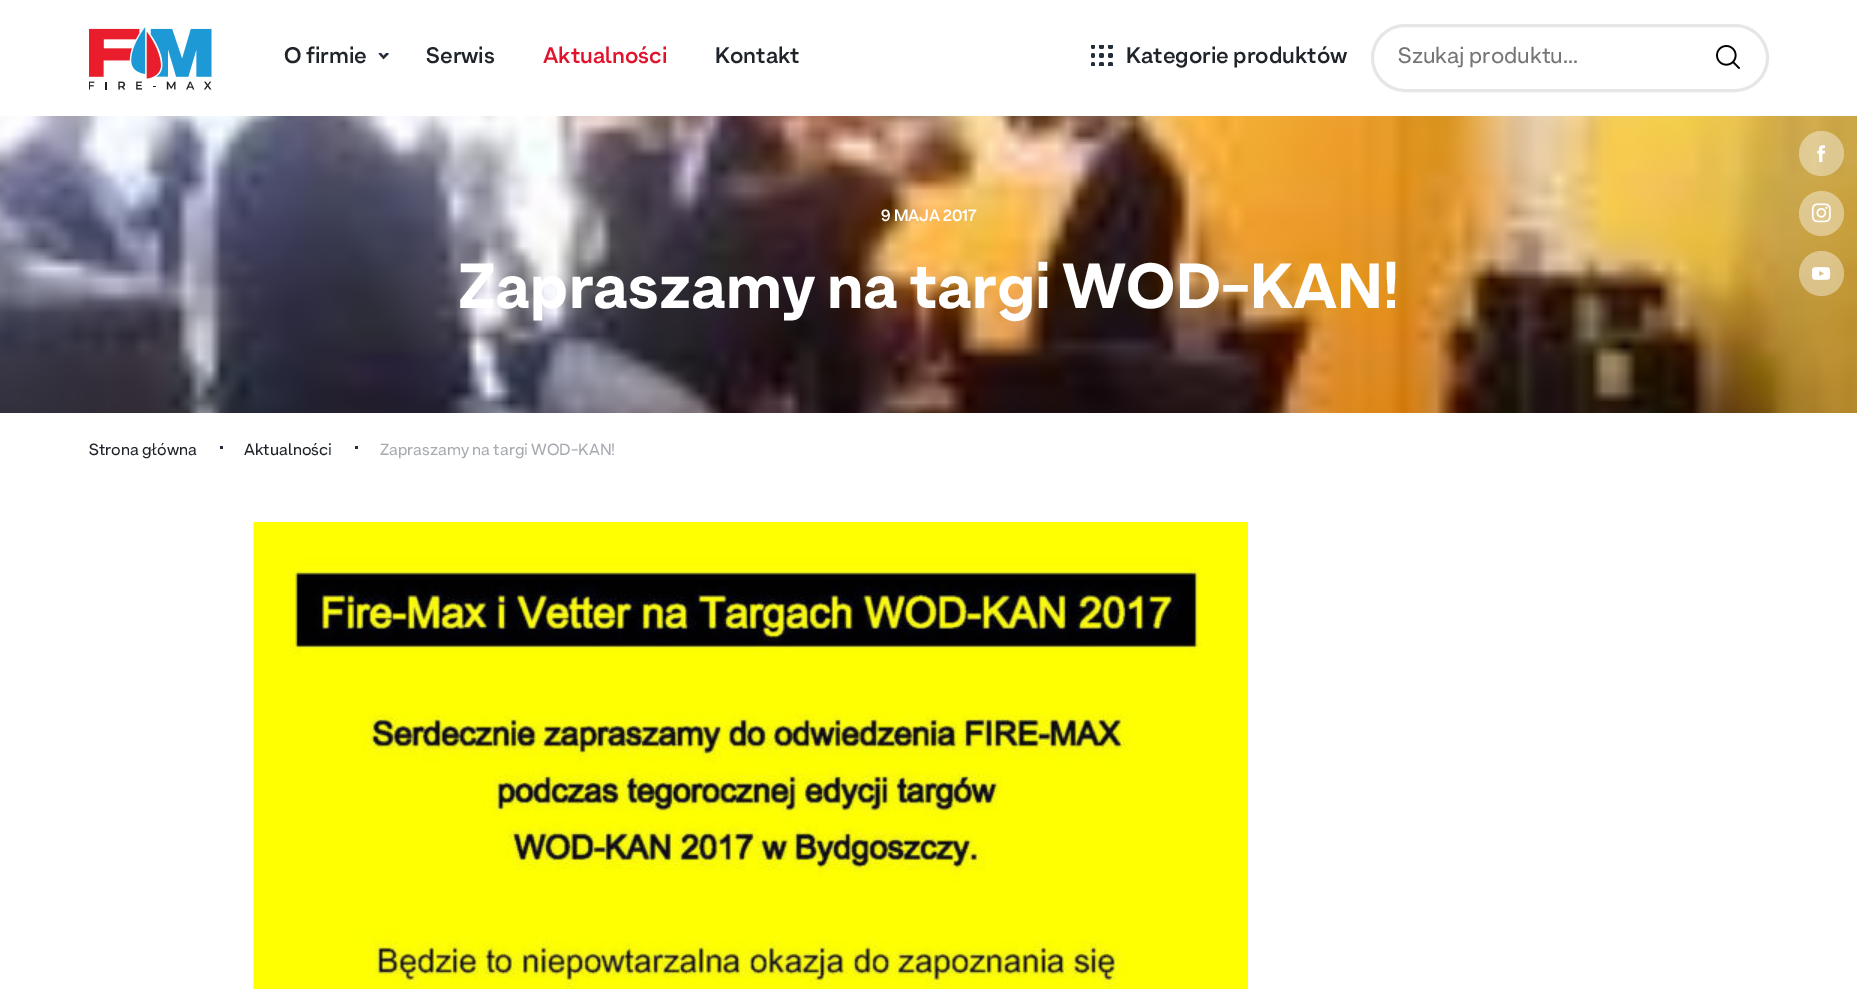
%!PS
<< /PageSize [1857 989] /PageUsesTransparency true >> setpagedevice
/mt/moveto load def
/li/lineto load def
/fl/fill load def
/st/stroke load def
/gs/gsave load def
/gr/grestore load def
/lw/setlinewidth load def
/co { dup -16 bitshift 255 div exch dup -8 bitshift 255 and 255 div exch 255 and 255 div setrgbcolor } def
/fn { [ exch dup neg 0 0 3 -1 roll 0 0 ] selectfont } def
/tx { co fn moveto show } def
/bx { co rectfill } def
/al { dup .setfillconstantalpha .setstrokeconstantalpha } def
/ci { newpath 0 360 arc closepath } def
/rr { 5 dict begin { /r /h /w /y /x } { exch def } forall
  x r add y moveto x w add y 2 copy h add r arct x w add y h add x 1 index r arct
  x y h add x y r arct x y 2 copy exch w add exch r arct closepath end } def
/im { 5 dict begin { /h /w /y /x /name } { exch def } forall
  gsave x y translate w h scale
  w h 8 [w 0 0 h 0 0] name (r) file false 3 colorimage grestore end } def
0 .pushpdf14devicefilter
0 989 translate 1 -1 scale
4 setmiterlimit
0 0 1857 989 16#FFFFFF bx
(media/1.raw) 89 27 123 63 im
gs
378 53 12 7 rectclip
16#242E3B co
2.2 lw
379.5 53 mt 383.5 57.5 li 388 53 li st
gr
(media/2.raw) 1091 45 22 21 im
16#E6E6E6 co
3 lw
1372.5 25.5 395 65 32.5 rr st
(media/3.raw) 1716 45 24 24 im
(media/4.raw) 0 116 1857 297 im
0.4 al
16#FFFFFF co
1821.5 153.5 22.5 ci fl
1 al
(media/5.raw) 1817 145 9 17 im
0.4 al
1821.5 213.5 22.5 ci fl
1 al
(media/6.raw) 1811 203 20 20 im
0.4 al
1821.5 273.5 22.5 ci fl
1 al
(media/7.raw) 1811 267 20 13 im
(media/8.raw) 253 522 995 467 im
(O firmie) 284 63 /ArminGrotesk-SemiBold 22.5 16#1F242A tx
(Serwis) 426 63 /ArminGrotesk-SemiBold 22.5 16#1F242A tx
(Aktualności) 543 63 /ArminGrotesk-SemiBold 22.5 16#E0122C tx
(Kontakt) 715 63 /ArminGrotesk-SemiBold 22.5 16#1F242A tx
(Kategorie produktów) 1126 63 /ArminGrotesk-SemiBold 22.5 16#1F242A tx
(Szukaj produktu...) 1398 63 /ArminGrotesk-Regular 22.5 16#757575 tx
(9 MAJA 2017) 881 221 /ArminGrotesk-SemiBold 16.25 16#FFFFFF tx
(Zapraszamy na targi WOD-KAN!) 458 308 /ArminGrotesk-ExtraBold 63 16#FFFFFF tx
(Strona główna) 89 455 /ArminGrotesk-Regular 16.25 16#1F242A tx
(.) 219 449 /ArminGrotesk-SemiBold 22.5 16#242E3B tx
(Aktualności) 244 455 /ArminGrotesk-Regular 16.25 16#1F242A tx
(.) 354 449 /ArminGrotesk-SemiBold 22.5 16#242E3B tx
(Zapraszamy na targi WOD-KAN!) 380 455 /ArminGrotesk-Regular 16.25 16#A7ABB1 tx
.poppdf14devicefilter showpage
